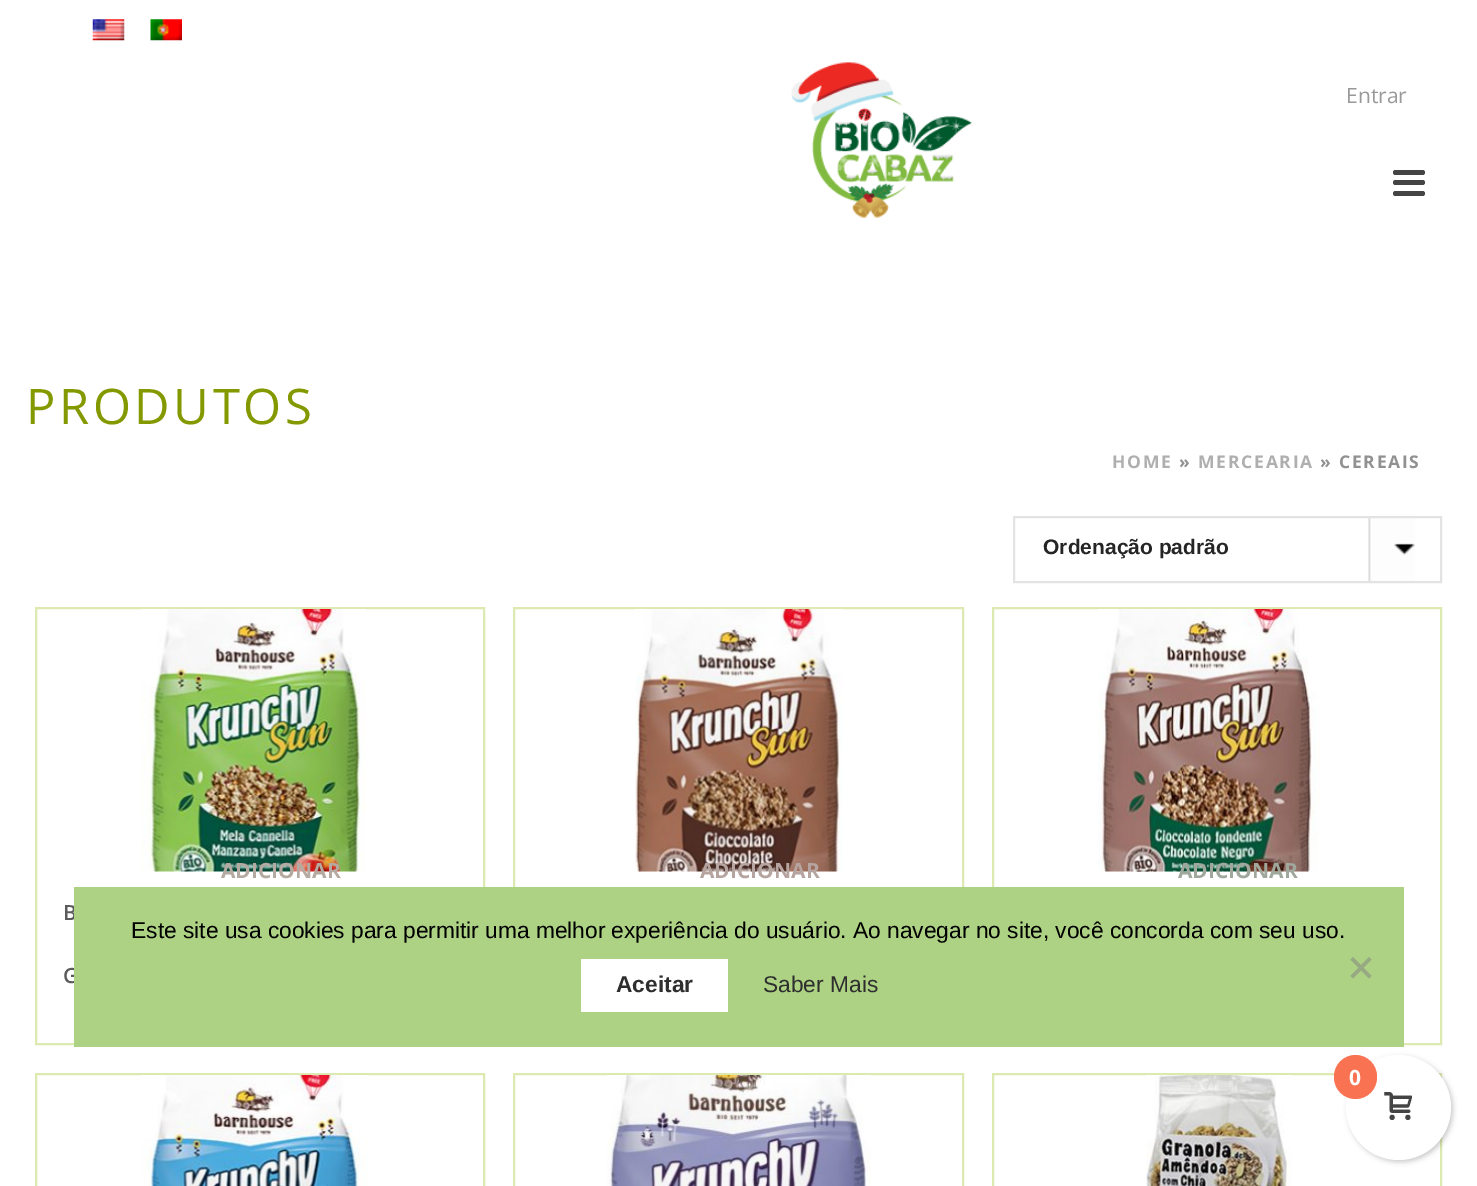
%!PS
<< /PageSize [1477 1186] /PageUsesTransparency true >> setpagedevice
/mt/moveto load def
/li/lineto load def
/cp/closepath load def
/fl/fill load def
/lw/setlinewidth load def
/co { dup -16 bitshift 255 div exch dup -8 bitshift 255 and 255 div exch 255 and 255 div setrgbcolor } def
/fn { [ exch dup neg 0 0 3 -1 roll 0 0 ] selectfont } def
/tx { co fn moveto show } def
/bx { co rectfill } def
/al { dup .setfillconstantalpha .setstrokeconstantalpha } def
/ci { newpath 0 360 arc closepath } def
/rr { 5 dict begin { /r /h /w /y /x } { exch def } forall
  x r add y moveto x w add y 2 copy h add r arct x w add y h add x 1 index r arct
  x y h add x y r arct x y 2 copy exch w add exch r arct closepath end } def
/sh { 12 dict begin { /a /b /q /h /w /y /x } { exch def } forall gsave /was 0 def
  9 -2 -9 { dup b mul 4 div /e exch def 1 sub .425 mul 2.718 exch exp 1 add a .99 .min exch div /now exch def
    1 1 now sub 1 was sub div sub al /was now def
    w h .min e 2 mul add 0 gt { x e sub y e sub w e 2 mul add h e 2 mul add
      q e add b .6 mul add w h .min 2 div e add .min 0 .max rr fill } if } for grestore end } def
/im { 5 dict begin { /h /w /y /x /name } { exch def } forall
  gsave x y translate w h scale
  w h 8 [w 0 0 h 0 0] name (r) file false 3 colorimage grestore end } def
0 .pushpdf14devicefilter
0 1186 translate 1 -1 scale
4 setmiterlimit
0 0 1477 1186 16#FFFFFF bx
(media/1.raw) 791 62 181 156 im
16#444444 co
1393 170 32 5 2.5 rr fl
1393 180 32 5 2.5 rr fl
1393 191 32 5 2.5 rr fl
(media/2.raw) 92 19 33 22 im
(media/3.raw) 150 19 32 22 im
(media/4.raw) 1368 518 47 63 im
16#E3E3E3 co
2 lw
1014 517 427 65 rectstroke
16#DCE9B0 co
36 608 448 436 rectstroke
(media/5.raw) 141 609 225 263 im
514 608 449 436 rectstroke
(media/6.raw) 635 609 208 263 im
993 608 448 436 rectstroke
(media/7.raw) 1098 609 222 263 im
36 1074 448 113 rectstroke
(media/8.raw) 141 1075 227 111 im
514 1074 449 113 rectstroke
(media/9.raw) 607 1075 264 111 im
993 1074 448 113 rectstroke
(media/10.raw) 1146 1075 146 111 im
16#000000 co
1348 1057 105 105 52.5 2.5 .2 sh
16#FFFFFF co
1398.5 1107.5 52.5 ci fl
16#F97352 co
1334 1055 43 44 21.5 rr fl
(media/11.raw) 1384 1092 28 28 im
(Entrar) 1346 103 /OpenSans-Regular 21 16#999999 tx
/OpenSans-Regular 49 fn
16#849900 co
26 424 mt 3.5 0 (PRODUTOS) ashow
/OpenSans-Bold 17.5 fn
16#AFAFAF co
1112 468 mt 1.75 0 (HOME) ashow
16#919191 co
1179 468 mt 1.75 0 (») ashow
16#AFAFAF co
1198 468 mt 1.75 0 (MERCEARIA) ashow
16#919191 co
1320 468 mt 1.75 0 (» CEREAIS) ashow
(Ordenação padrão) 1043 554 /LiberationSans-Bold 21 16#252525 tx
(ADICIONAR) 221 878 /OpenSans-Bold 21 16#B5AAA1 tx
/OpenSans-SemiBold 21 fn
16#5B5B5B co
63 920 mt 1.75 0 (B) ashow
63 983 mt 1.75 0 (G) ashow
(ADICIONAR) 700 878 /OpenSans-Bold 21 16#B5A49F tx
(ADICIONAR) 1178 878 /OpenSans-Bold 21 16#A0A89E tx
74 887 1330 160 16#AED284 bx
(Este site usa cookies para permitir uma melhor experiência do usuário. Ao navegar no site, você concorda com seu uso.) 131 938 /LiberationSans-Regular 22.75 16#000000 tx
16#97A982 co
1369 957 mt 1371.5 959.5 li 1353 978.5 li 1350.5 976 li cp fl
1350.5 959.5 mt 1353 957 li 1371.5 976 li 1369 978.5 li cp fl
581 959 147 53 16#FFFFFF bx
(Aceitar) 616 992 /LiberationSans-Bold 22.75 16#2E2E2E tx
(Saber Mais) 763 992 /LiberationSans-Regular 22.75 16#2E2E2E tx
(0) 1349 1085 /OpenSans-Bold 21 16#FFFFFF tx
.poppdf14devicefilter showpage
